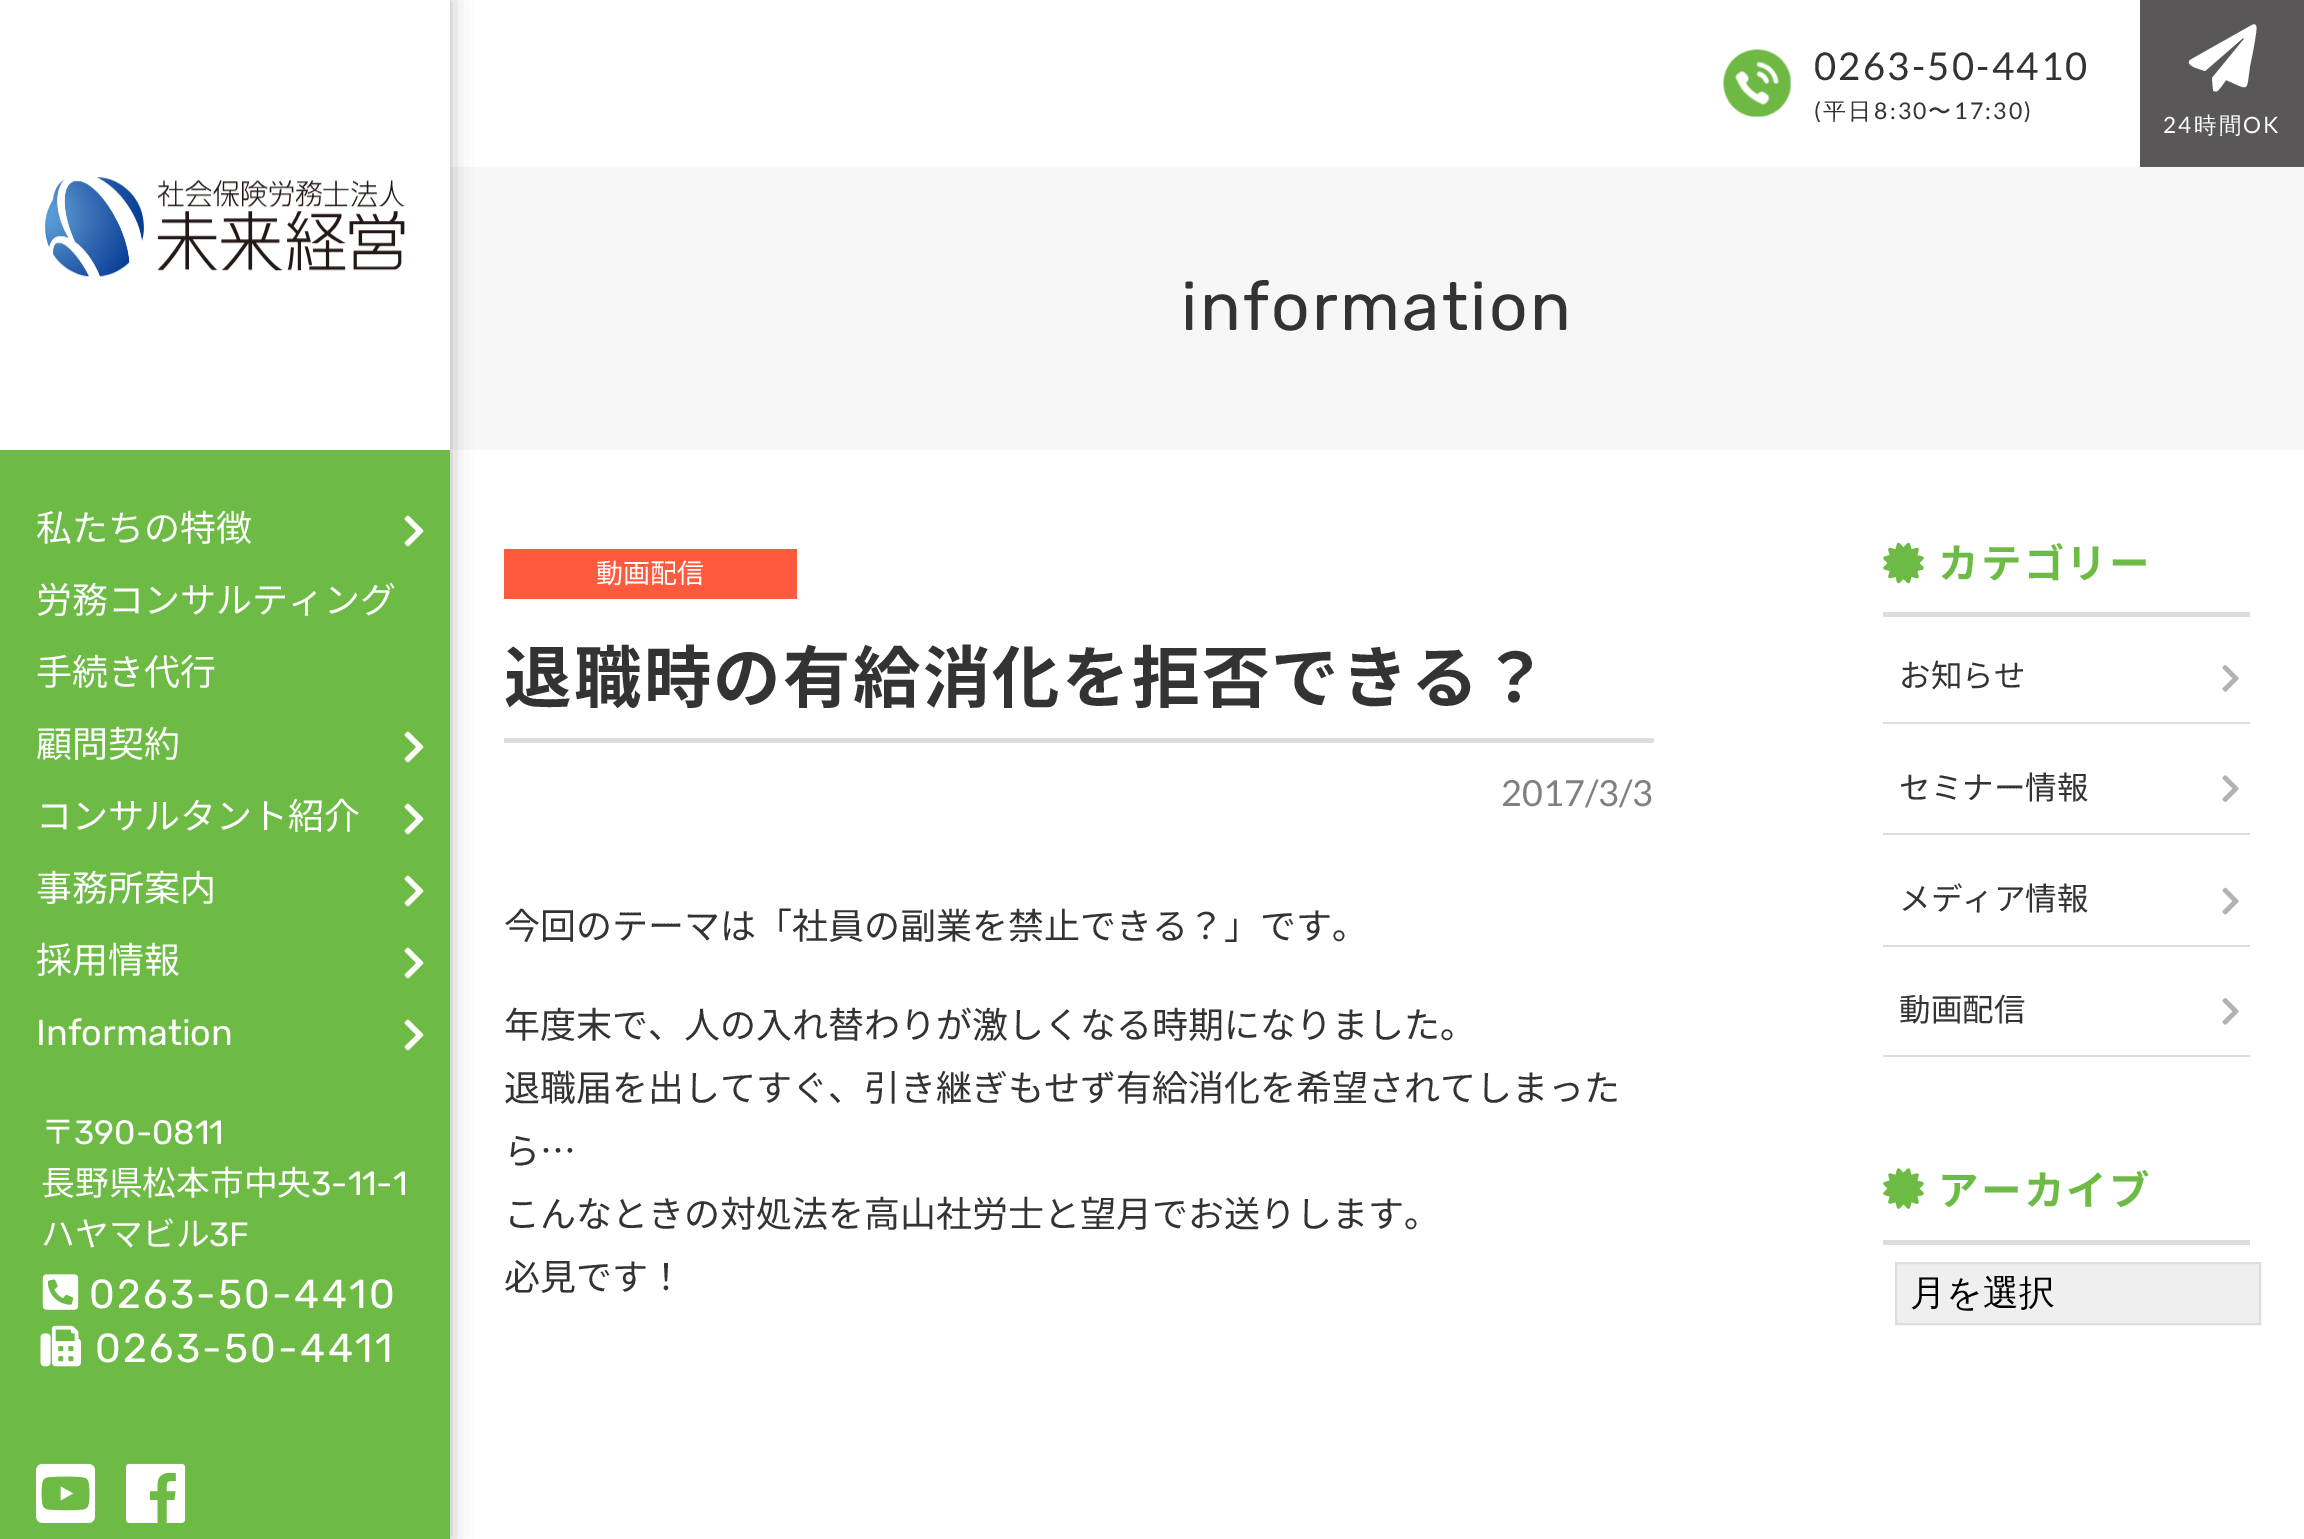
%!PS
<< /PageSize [2304 1539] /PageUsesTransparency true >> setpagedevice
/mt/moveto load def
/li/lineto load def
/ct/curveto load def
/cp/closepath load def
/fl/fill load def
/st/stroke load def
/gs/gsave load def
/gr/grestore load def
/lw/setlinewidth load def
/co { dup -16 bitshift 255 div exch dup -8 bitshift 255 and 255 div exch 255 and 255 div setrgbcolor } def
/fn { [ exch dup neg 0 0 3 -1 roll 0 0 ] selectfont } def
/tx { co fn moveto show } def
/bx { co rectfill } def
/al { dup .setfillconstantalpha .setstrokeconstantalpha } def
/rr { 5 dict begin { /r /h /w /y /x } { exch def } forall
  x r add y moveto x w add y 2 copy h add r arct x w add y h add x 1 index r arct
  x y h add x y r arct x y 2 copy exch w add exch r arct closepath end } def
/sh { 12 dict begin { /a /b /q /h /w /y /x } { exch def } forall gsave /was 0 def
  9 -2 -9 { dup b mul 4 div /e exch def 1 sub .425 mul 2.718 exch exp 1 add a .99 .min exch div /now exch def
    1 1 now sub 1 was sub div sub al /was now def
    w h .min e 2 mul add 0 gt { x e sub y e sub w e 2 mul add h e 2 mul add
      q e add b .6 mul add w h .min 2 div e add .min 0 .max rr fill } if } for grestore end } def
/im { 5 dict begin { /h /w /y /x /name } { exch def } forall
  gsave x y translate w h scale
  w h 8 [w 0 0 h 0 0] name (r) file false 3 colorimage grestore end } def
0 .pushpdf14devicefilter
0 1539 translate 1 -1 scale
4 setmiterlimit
0 0 2304 1539 16#FFFFFF bx
(media/1.raw) 1723 49 69 69 im
2140 0 164 167 16#595757 bx
16#FFFFFF co
2252 25 mt 2190 60 li 2186 64 2194 67 2196 68 ct 2205 71 li 2243 38 li 2244 39 li 2212 78 li 2213 89 li 2213 90 2213 91 2214 91 ct 2217 93 2219 89 2221 87 ct 2226 80 li 2250 90 2246 93 2250 66 ct 2251 61 2258 28 2256 26 ct 2255 24 2254 24 2252 25 ct cp fl
450 167 1854 283 16#F7F7F7 bx
16#000000 co
0 0 450 1539 0 11 .3 sh
0 450 450 1089 16#6DBA44 bx
0 0 450 450 16#FFFFFF bx
(media/2.raw) 45 177 360 100 im
(media/3.raw) 404 515 20 32 im
(media/3.raw) 404 731 20 32 im
(media/3.raw) 404 803 20 32 im
(media/3.raw) 404 875 20 32 im
(media/3.raw) 404 947 20 32 im
(media/3.raw) 404 1019 20 32 im
(media/4.raw) 42 1274 37 36 im
(media/5.raw) 40 1325 41 42 im
(media/6.raw) 36 1463 60 60 im
(media/7.raw) 126 1463 60 60 im
504 549 293 50 16#FF593E bx
504 738 1150 5 16#DEDEDE bx
1883 612 367 5 16#DDDDDD bx
(media/8.raw) 1883 542 41 42 im
1883 722 367 2 16#DDDDDD bx
(media/9.raw) 2222 665 17 27 im
1883 833 367 2 16#DDDDDD bx
(media/10.raw) 2222 775 17 27 im
1883 945 367 2 16#DDDDDD bx
(media/11.raw) 2222 887 17 28 im
1883 1055 367 2 16#DDDDDD bx
(media/9.raw) 2222 998 17 27 im
1883 1240 367 5 16#DDDDDD bx
(media/12.raw) 1883 1168 41 41 im
16#EFEFEF co
1896 1263 mt 2260 1263 li 2260 1324 li 1896 1324 li cp gs fl gr
16#DDDDDD co
2 lw
st
/Lato-Regular 38.25 fn
16#333333 co
1814 80 mt 2.25 0 (0263-50-4410) ashow
/Lato-Regular 23 fn
1814 119 mt 2.25 0 (\() ashow
/WenQuanYiZenHei-Medium 23 fn
1823 119 mt 2.25 0 (平日) ashow
/Lato-Regular 23 fn
1874 119 mt 2.25 0 (8:30) ashow
/WenQuanYiZenHei-Medium 23 fn
1928 119 mt 2.25 0 (〜) ashow
/Lato-Regular 23 fn
1954 119 mt 2.25 0 (17:30\)) ashow
/Lato-Regular 22.5 fn
16#FFFFFF co
2163 133 mt 2.25 0 (24) ashow
/WenQuanYiZenHei-Medium 22.5 fn
2194 133 mt 2.25 0 (時間) ashow
/Lato-Regular 22.5 fn
2243 133 mt 2.25 0 (OK) ashow
(私たちの特徴) 36 541 /NotoSansJP-Regular 36 16#FFFFFF tx
(労務コンサルティング) 36 613 /NotoSansJP-Regular 36 16#FFFFFF tx
(手続き代行) 36 685 /NotoSansJP-Regular 36 16#FFFFFF tx
(顧問契約) 36 757 /NotoSansJP-Regular 36 16#FFFFFF tx
(コンサルタント紹介) 36 829 /NotoSansJP-Regular 36 16#FFFFFF tx
(事務所案内) 36 901 /NotoSansJP-Regular 36 16#FFFFFF tx
(採用情報) 36 973 /NotoSansJP-Regular 36 16#FFFFFF tx
(Information) 36 1045 /Rubik-Light 36 16#FFFFFF tx
(〒) 41 1144 /NotoSansJP-Regular 33.75 16#FFFFFF tx
(390-0811) 74 1144 /Rubik-Light 33.75 16#FFFFFF tx
(長野県松本市中央) 41 1195 /NotoSansJP-Regular 33.75 16#FFFFFF tx
(3-11-1) 311 1195 /Rubik-Light 33.75 16#FFFFFF tx
(ハヤマビル) 41 1246 /NotoSansJP-Regular 33.75 16#FFFFFF tx
(3F) 209 1246 /Rubik-Light 33.75 16#FFFFFF tx
/Rubik-Light 40.5 fn
89 1308 mt 2.25 0 (0263-50-4410) ashow
95 1362 mt 2.25 0 (0263-50-4411) ashow
/Rubik-Light 67.5 fn
16#333333 co
1181 330 mt 2.25 0 (information) ashow
(動画配信) 596 583 /NotoSansJP-Regular 27 16#FFFFFF tx
/NotoSansJP-Bold 67.5 fn
16#333333 co
504 702 mt 2.25 0 (退職時の有給消化を拒否できる？) ashow
(2017/3/3) 1501 806 /Lato-Regular 36 16#808080 tx
(今回のテーマは「社員の副業を禁止できる？」です。) 504 939 /NotoSansJP-Regular 36 16#333333 tx
(年度末で、人の入れ替わりが激しくなる時期になりました。) 504 1038 /NotoSansJP-Regular 36 16#333333 tx
(退職届を出してすぐ、引き継ぎもせず有給消化を希望されてしまった) 504 1101 /NotoSansJP-Regular 36 16#333333 tx
(ら…) 504 1164 /NotoSansJP-Regular 36 16#333333 tx
(こんなときの対処法を高山社労士と望月でお送りします。) 504 1227 /NotoSansJP-Regular 36 16#333333 tx
(必見です！) 504 1290 /NotoSansJP-Regular 36 16#333333 tx
/NotoSansJP-Bold 40.5 fn
16#6DBA44 co
1938 578 mt 2.25 0 (カテゴリー) ashow
(お知らせ) 1899 687 /NotoSansJP-Regular 31.5 16#333333 tx
(セミナー情報) 1899 799 /NotoSansJP-Regular 31.5 16#333333 tx
(メディア情報) 1899 910 /NotoSansJP-Regular 31.5 16#333333 tx
(動画配信) 1899 1021 /NotoSansJP-Regular 31.5 16#333333 tx
/NotoSansJP-Bold 40.5 fn
16#6DBA44 co
1938 1205 mt 2.25 0 (アーカイブ) ashow
(月を選択) 1910 1305 /WenQuanYiZenHei-Medium 36 16#000000 tx
.poppdf14devicefilter showpage
